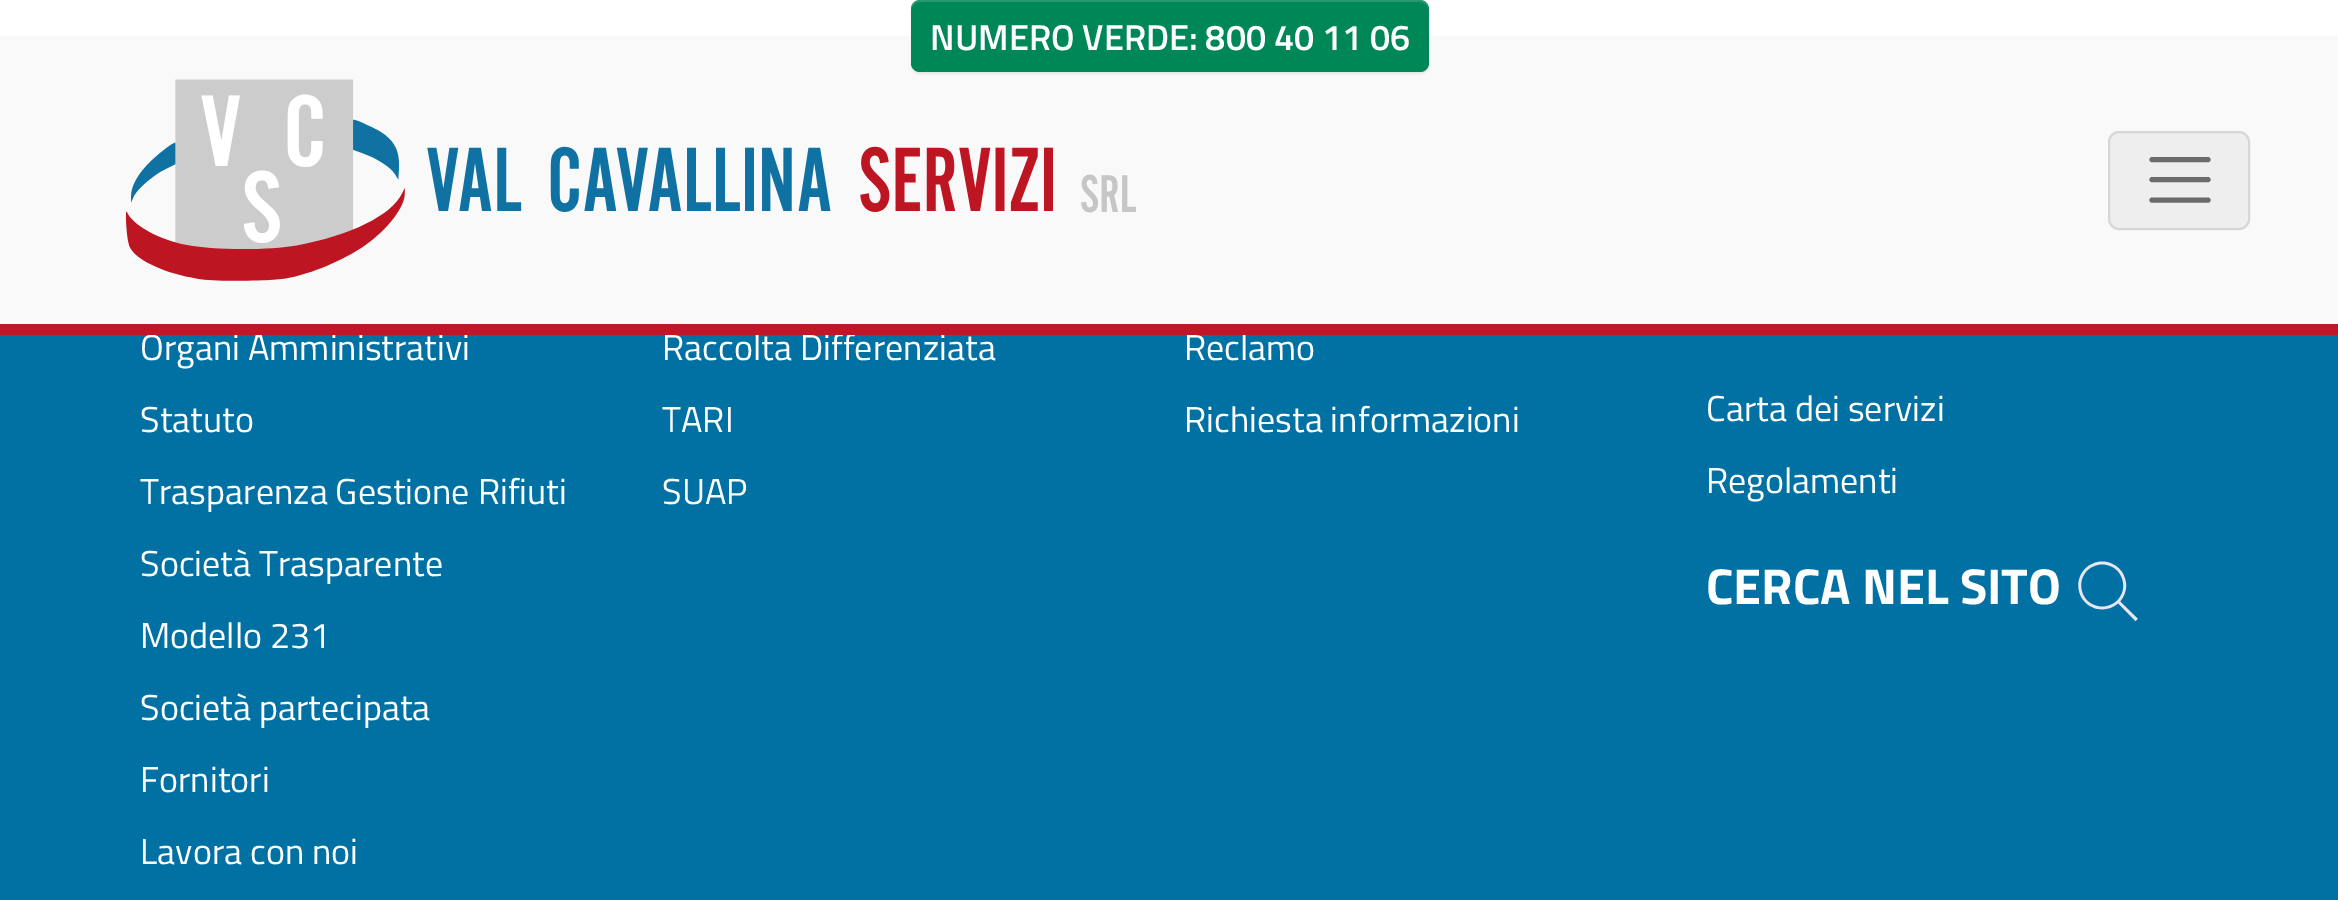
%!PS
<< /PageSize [2338 900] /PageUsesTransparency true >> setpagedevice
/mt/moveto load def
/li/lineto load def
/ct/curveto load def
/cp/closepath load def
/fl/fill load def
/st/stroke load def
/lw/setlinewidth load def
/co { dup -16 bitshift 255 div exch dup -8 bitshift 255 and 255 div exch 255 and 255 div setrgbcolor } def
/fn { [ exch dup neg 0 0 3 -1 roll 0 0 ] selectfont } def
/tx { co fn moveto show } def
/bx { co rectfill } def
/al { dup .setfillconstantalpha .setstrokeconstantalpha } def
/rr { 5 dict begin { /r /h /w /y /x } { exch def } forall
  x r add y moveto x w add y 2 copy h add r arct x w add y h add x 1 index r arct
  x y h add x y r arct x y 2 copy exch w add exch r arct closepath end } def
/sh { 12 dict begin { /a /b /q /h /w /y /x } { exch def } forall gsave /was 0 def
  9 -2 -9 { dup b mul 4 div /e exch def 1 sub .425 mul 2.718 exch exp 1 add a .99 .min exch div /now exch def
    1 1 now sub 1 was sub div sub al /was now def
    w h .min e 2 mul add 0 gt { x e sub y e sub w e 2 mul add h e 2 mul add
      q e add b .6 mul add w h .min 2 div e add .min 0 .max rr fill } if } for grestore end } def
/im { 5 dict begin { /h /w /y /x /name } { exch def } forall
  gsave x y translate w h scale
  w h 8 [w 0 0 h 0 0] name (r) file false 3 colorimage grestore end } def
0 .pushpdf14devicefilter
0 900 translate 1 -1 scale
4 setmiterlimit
0 0 2338 900 16#0171A3 bx
0 0 2338 36 16#FFFFFF bx
0 36 2338 288 16#F9F9F9 bx
16#000000 co
911 2 518 72 9 1 .07 sh
16#008758 co
911 0 518 72 9 rr fl
0.15 al
16#FFFFFF co
920 2 mt 1420 2 li 1425 2 1429 6 1429 11 ct 1429 9 li 1429 4 1425 0 1420 0 ct 920 0 li 915 0 911 4 911 9 ct 911 11 li 911 6 915 2 920 2 ct cp fl
1 al
(media/1.raw) 125 79 1011 202 im
16#EEEEEE co
2108 131 142 99 11 rr fl
0.1 al
16#000000 co
2 lw
2109 132 140 97 10 rr st
1 al
16#6B6B6B co
5.1 lw
1 setlinecap
2152 159.5 mt 2208 159.5 li 2152 179.5 mt 2208 179.5 li 2152 200 mt 2208 200 li st
(media/2.raw) 2078 561 60 61 im
(NUMERO VERDE: 800 40 11 06) 930 50 /TitilliumWeb-SemiBold 36 16#FFFFFF tx
(Organi Amministrativi) 140 360 /TitilliumWeb-Regular 36 16#FFFFFF tx
(Statuto) 140 432 /TitilliumWeb-Regular 36 16#FFFFFF tx
(Trasparenza Gestione Rifiuti) 140 504 /TitilliumWeb-Regular 36 16#FFFFFF tx
(Società Trasparente) 140 576 /TitilliumWeb-Regular 36 16#FFFFFF tx
(Modello 231) 140 648 /TitilliumWeb-Regular 36 16#FFFFFF tx
(Società partecipata) 140 720 /TitilliumWeb-Regular 36 16#FFFFFF tx
(Fornitori) 140 792 /TitilliumWeb-Regular 36 16#FFFFFF tx
(Lavora con noi) 140 864 /TitilliumWeb-Regular 36 16#FFFFFF tx
(Raccolta Differenziata) 662 360 /TitilliumWeb-Regular 36 16#FFFFFF tx
(TARI) 662 432 /TitilliumWeb-Regular 36 16#FFFFFF tx
(SUAP) 662 504 /TitilliumWeb-Regular 36 16#FFFFFF tx
(Reclamo) 1184 360 /TitilliumWeb-Regular 36 16#FFFFFF tx
0 324 2338 11 16#BB1928 bx
(Richiesta informazioni) 1184 432 /TitilliumWeb-Regular 36 16#FFFFFF tx
(Carta dei servizi) 1706 421 /TitilliumWeb-Regular 36 16#FFFFFF tx
(Regolamenti) 1706 493 /TitilliumWeb-Regular 36 16#FFFFFF tx
(CERCA NEL SITO) 1706 604 /TitilliumWeb-Bold 50.5 16#FFFFFF tx
.poppdf14devicefilter showpage
